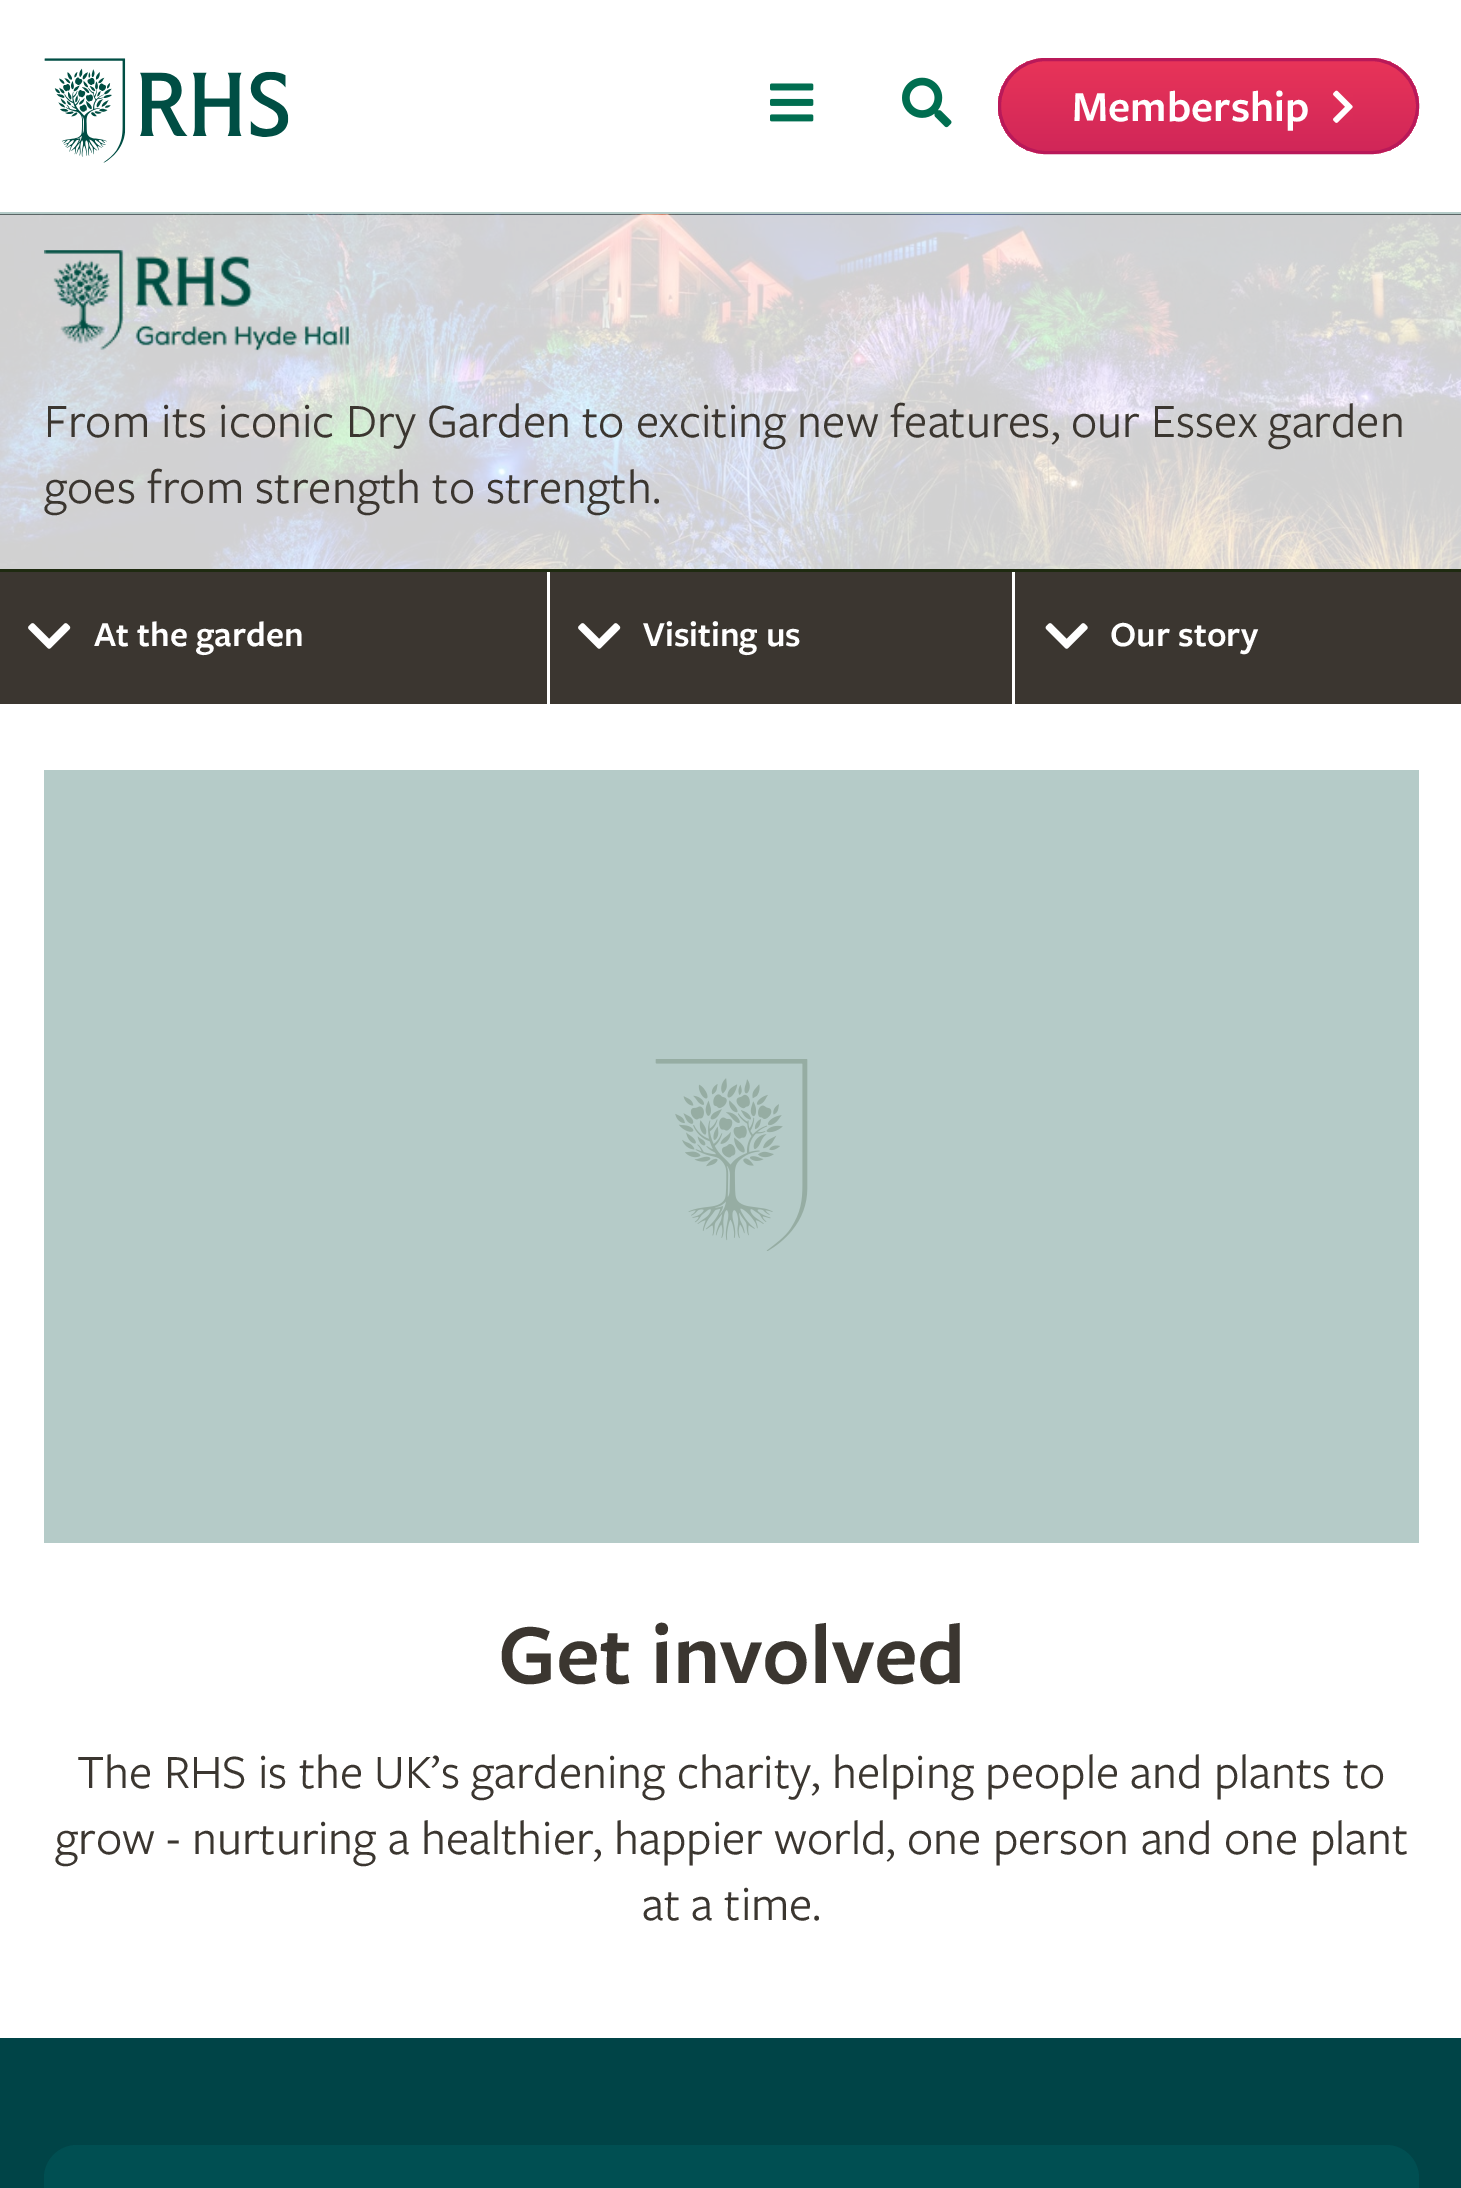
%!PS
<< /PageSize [1461 2188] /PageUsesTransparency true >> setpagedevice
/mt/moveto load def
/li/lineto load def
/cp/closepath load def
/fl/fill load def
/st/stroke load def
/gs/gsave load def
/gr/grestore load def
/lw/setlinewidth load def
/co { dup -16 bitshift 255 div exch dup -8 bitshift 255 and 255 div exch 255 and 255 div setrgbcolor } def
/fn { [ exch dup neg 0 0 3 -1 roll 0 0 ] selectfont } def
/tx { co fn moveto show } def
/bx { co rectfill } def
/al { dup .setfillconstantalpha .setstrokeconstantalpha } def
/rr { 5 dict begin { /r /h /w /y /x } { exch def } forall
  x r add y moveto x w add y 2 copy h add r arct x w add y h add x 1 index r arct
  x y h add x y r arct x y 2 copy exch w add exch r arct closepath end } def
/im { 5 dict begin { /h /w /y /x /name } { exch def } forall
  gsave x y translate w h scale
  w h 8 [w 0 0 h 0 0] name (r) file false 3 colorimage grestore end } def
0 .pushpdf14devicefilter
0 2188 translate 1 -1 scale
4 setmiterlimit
0 0 1461 2188 16#FFFFFF bx
0 212 1461 3 16#B5CBC8 bx
(media/1.raw) 44 58 245 105 im
(media/2.raw) 770 83 44 39 im
(media/3.raw) 902 77 50 51 im
16#E83458 co
998 58 421 96 48 rr fl
gs
998 58 421 96 48 rr clip newpath
0.5 al
gs 998 61 mt 1419 61 li 1419 151 li 998 151 li cp clip newpath
<< /ShadingType 2 /ColorSpace /DeviceRGB /Coords [1209 60 1209 151] /Extend [true true] /Function << /FunctionType 2 /Domain [0 1] /C0 [.91 .204 .345] /C1 [.725 .098 .349] /N 1 >> >> shfill gr
gr
16#B91959 co
3 lw
999.5 59.5 418 93 46.5 rr st
(media/4.raw) 1333 90 20 33 im
(media/5.raw) 0 214 1461 355 im
0 569 1461 3 16#1E2A10 bx
(media/6.raw) 44 250 305 101 im
0 572 547 132 16#3B3630 bx
(media/7.raw) 28 623 43 26 im
550 572 462 132 16#3B3630 bx
(media/7.raw) 578 623 43 26 im
1015 572 446 132 16#3B3630 bx
(media/8.raw) 1045 623 43 26 im
44 770 1375 773 16#B5CBC8 bx
(media/9.raw) 655 1059 153 192 im
0 2038 1461 150 16#004447 bx
16#004F52 co
44 2145 1375 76 33 rr fl
(Membership) 1072 121 /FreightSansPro-SemiBold 44.5 16#FFFFFF tx
(From its iconic Dry Garden to exciting new features, our Essex garden) 44 437 /FreightSansPro-Regular 49.5 16#3B3630 tx
(goes from strength to strength.) 44 503 /FreightSansPro-Regular 49.5 16#3B3630 tx
(At the garden) 94 646 /FreightSansPro-SemiBold 36.25 16#FFFFFF tx
(Visiting us) 643 646 /FreightSansPro-SemiBold 36.25 16#FFFFFF tx
(Our story) 1110 646 /FreightSansPro-SemiBold 36.25 16#FFFFFF tx
(Get involved) 498 1683 /FreightSansPro-SemiBold 88 16#3B3630 tx
(The RHS is the UK’s gardening charity, helping people and plants to) 77 1788 /FreightSansPro-Regular 49.5 16#3B3630 tx
(grow - nurturing a healthier, happier world, one person and one plant) 55 1854 /FreightSansPro-Regular 49.5 16#3B3630 tx
(at a time.) 642 1920 /FreightSansPro-Regular 49.5 16#3B3630 tx
.poppdf14devicefilter showpage
